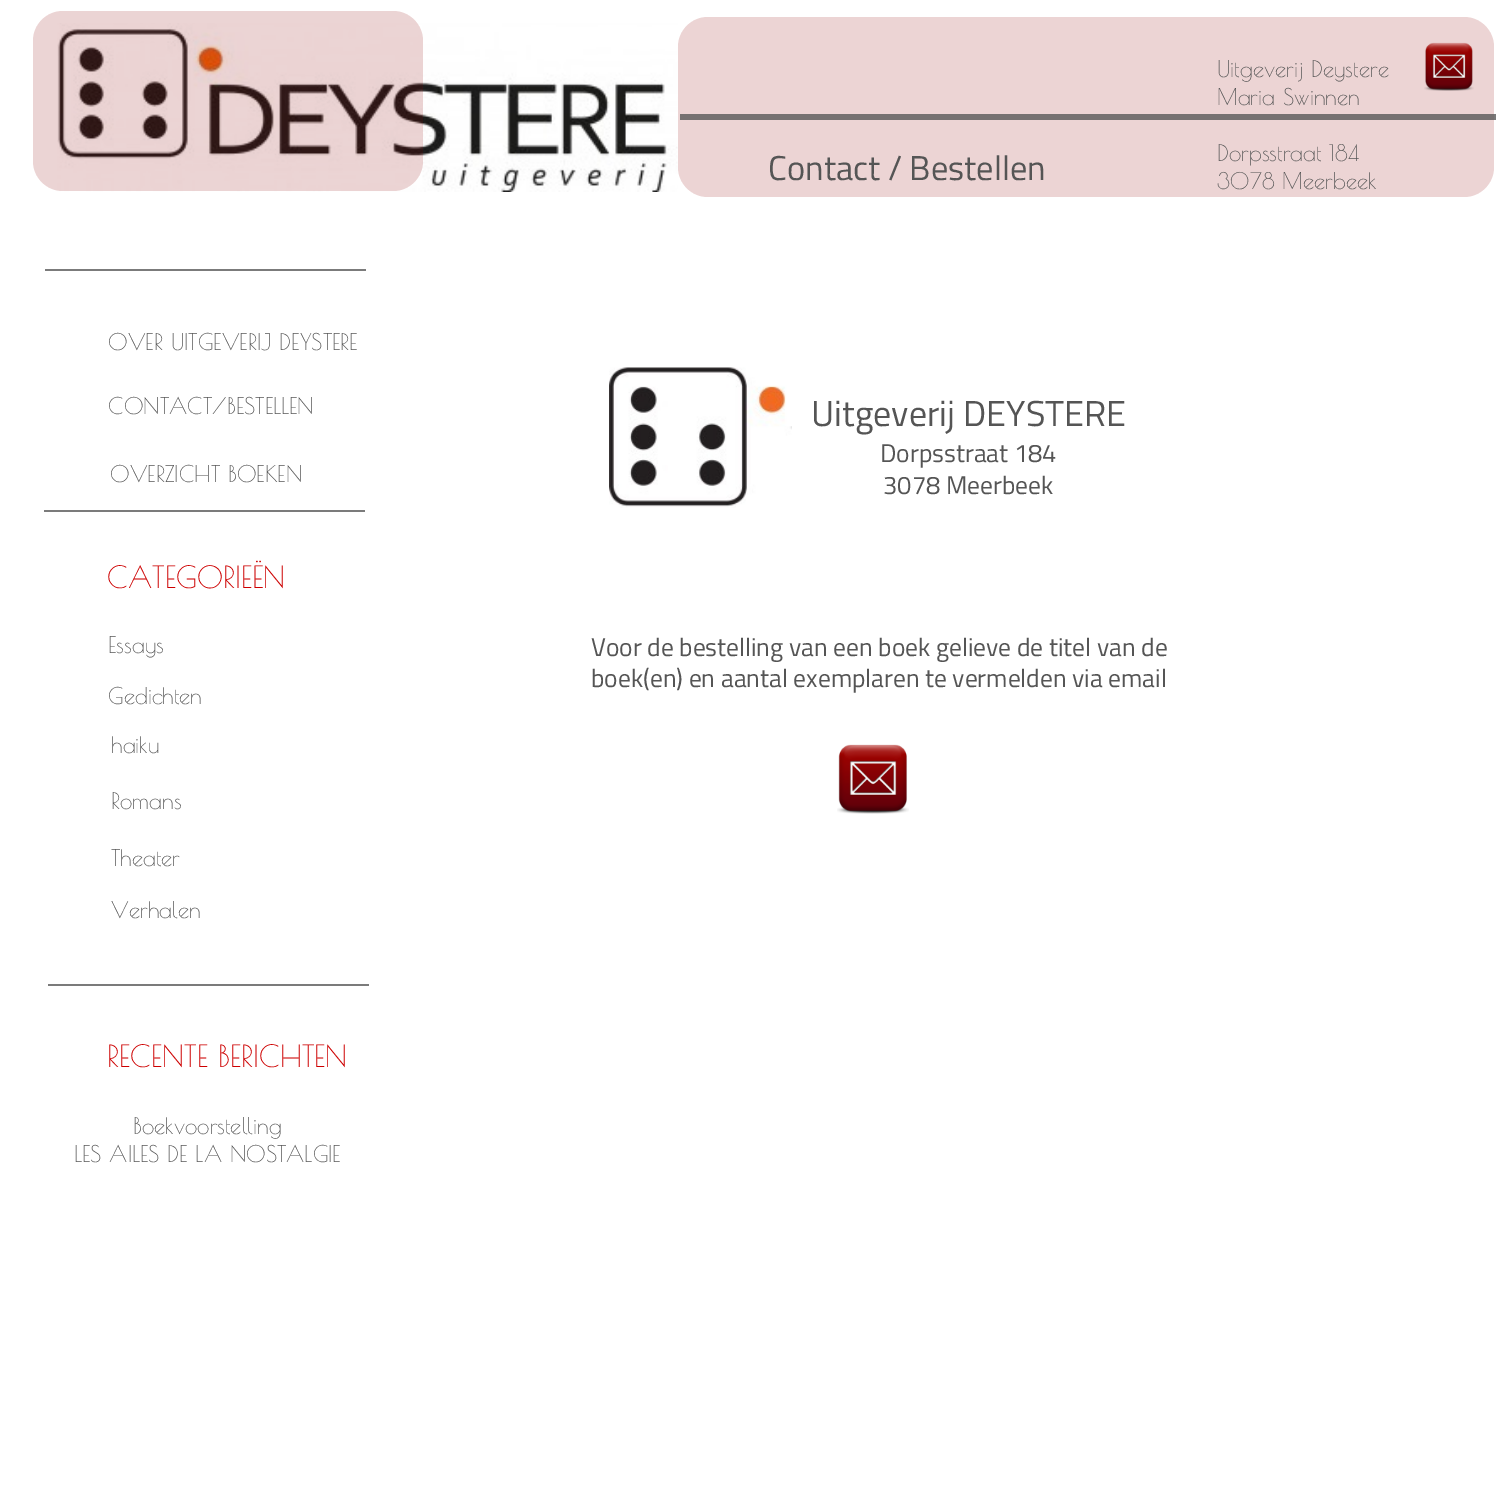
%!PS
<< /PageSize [1501 1509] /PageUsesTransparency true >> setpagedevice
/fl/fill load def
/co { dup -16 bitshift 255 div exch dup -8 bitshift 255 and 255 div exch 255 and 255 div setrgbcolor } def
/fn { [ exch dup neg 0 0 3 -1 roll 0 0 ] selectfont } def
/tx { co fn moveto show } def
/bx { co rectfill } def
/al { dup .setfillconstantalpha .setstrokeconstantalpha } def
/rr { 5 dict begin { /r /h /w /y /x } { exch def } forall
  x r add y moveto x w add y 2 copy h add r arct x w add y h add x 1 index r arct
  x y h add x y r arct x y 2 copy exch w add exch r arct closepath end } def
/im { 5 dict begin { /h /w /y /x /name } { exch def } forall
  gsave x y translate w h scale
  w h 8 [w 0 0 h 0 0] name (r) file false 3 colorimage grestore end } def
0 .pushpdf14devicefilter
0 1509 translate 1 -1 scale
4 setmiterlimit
0 0 1501 1509 16#FFFFFF bx
1494 114 2 6 16#7A7A7A bx
(media/1.raw) 57 23 621 169 im
0.17 al
16#8B0000 co
33 11 390 180 30 rr fl
1 al
16#ECD4D4 co
678 17 816 180 30 rr fl
680 114 814 6 16#767171 bx
(media/2.raw) 1424 42 50 49 im
45 269 321 2 16#7B7B7B bx
(media/3.raw) 609 367 183 141 im
44 510 321 2 16#7B7B7B bx
(media/4.raw) 837 744 72 70 im
48 984 321 2 16#7B7B7B bx
(Contact / Bestellen) 768 180 /TitilliumWeb-Regular 34.5 16#555555 tx
(Uitgeverij Deystere) 1217 77 /PoiretOne-Regular 22.5 16#555555 tx
(Maria Swinnen) 1217 105 /PoiretOne-Regular 22.5 16#555555 tx
(Dorpsstraat 184) 1217 161 /PoiretOne-Regular 22.5 16#555555 tx
(3078 Meerbeek) 1217 189 /PoiretOne-Regular 22.5 16#555555 tx
(OVER UITGEVERIJ DEYSTERE) 108 350 /PoiretOne-Regular 22.5 16#555555 tx
(CONTACT/BESTELLEN) 108 414 /PoiretOne-Regular 22.5 16#555555 tx
(Uitgeverij DEYSTERE) 811 426 /TitilliumWeb-Regular 36 16#555555 tx
(OVERZICHT BOEKEN) 110 482 /PoiretOne-Regular 22.5 16#555555 tx
(Dorpsstraat 184) 880 462 /TitilliumWeb-Regular 25.5 16#555555 tx
(3078 Meerbeek) 883 494 /TitilliumWeb-Regular 25.5 16#555555 tx
(CATEGORIEËN) 107 588 /PoiretOne-Regular 30 16#CD0000 tx
(Essays) 108 653 /PoiretOne-Regular 22.5 16#555555 tx
(Voor de bestelling van een boek gelieve de titel van de) 591 656 /TitilliumWeb-Regular 25.5 16#555555 tx
(boek\(en\) en aantal exemplaren te vermelden via email) 591 687 /TitilliumWeb-Regular 25.5 16#555555 tx
(Gedichten) 108 704 /PoiretOne-Regular 22.5 16#555555 tx
(haiku) 111 753 /PoiretOne-Regular 22.5 16#555555 tx
(Romans) 111 809 /PoiretOne-Regular 22.5 16#555555 tx
(Theater) 111 866 /PoiretOne-Regular 22.5 16#555555 tx
(Verhalen) 111 918 /PoiretOne-Regular 22.5 16#555555 tx
(RECENTE BERICHTEN) 107 1067 /PoiretOne-Regular 30 16#CD0000 tx
(Boekvoorstelling) 133 1134 /PoiretOne-Regular 22.5 16#555555 tx
(LES AILES DE LA NOSTALGIE) 74 1162 /PoiretOne-Regular 22.5 16#555555 tx
.poppdf14devicefilter showpage
